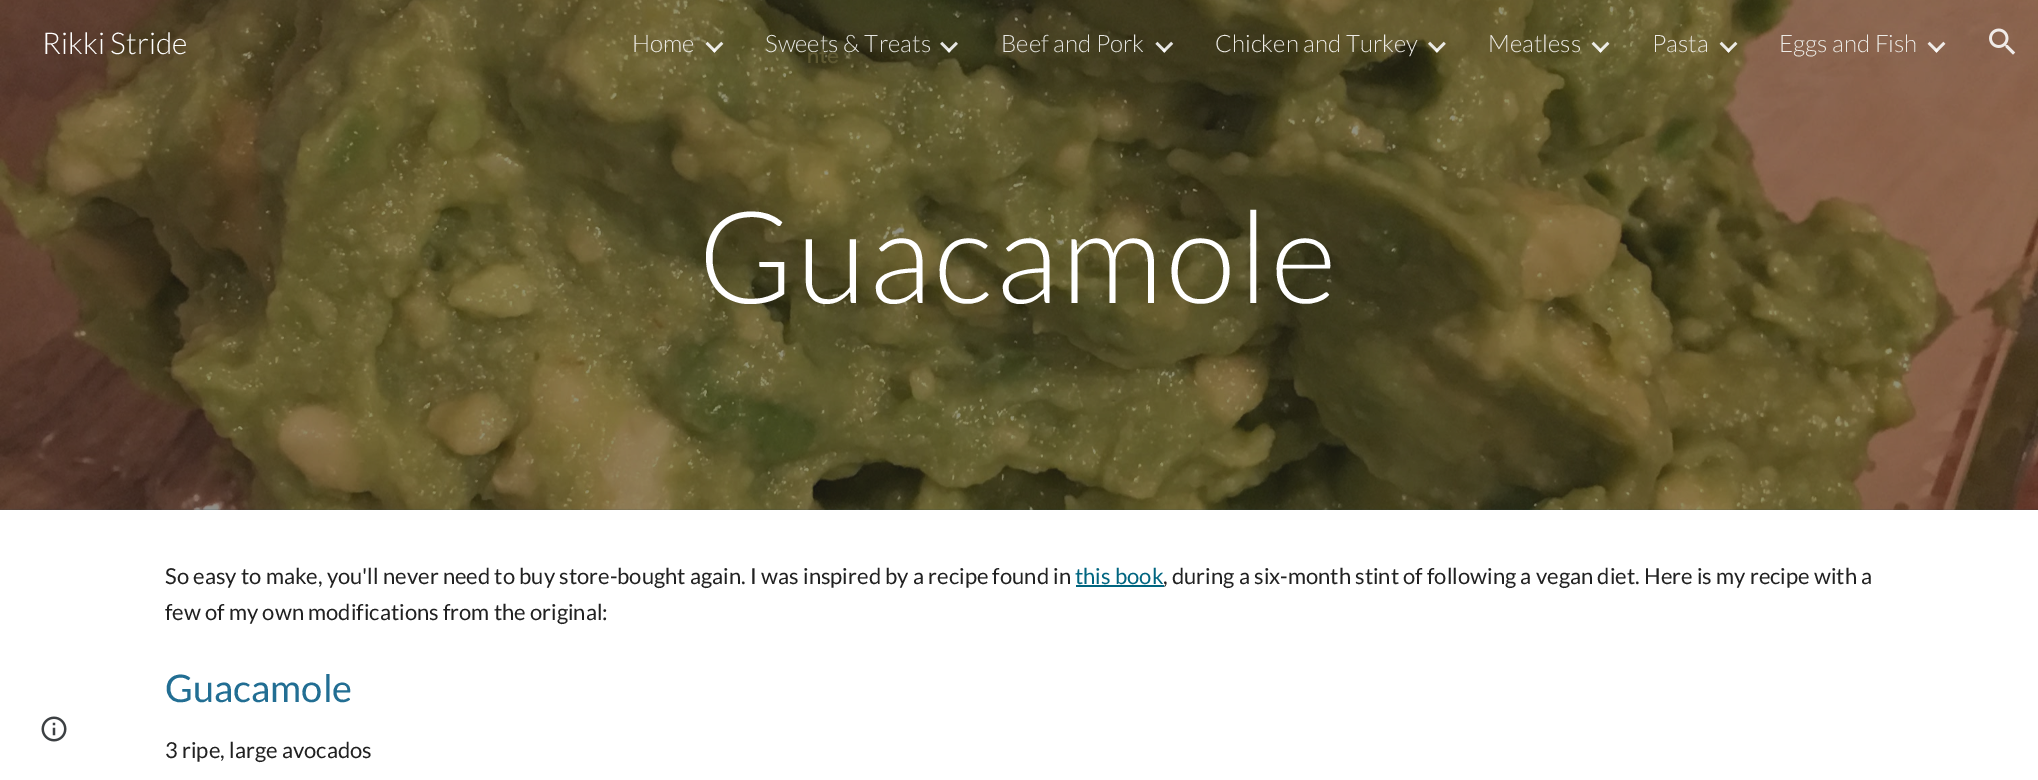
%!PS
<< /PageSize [2038 780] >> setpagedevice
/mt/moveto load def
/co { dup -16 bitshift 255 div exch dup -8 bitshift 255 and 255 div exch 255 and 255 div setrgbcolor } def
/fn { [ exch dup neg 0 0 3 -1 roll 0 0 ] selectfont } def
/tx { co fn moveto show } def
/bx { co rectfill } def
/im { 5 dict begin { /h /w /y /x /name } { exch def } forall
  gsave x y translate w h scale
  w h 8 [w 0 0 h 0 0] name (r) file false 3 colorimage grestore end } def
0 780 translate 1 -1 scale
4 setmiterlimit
0 0 2038 780 16#FFFFFF bx
(media/10.raw) 0 0 2038 510 im
(media/1.raw) 705 41 19 12 im
(media/2.raw) 940 41 18 12 im
(media/3.raw) 1155 41 19 12 im
(media/4.raw) 1428 41 18 12 im
(media/5.raw) 1591 41 19 12 im
(media/6.raw) 1719 41 19 12 im
(media/7.raw) 1927 41 19 12 im
(media/8.raw) 1989 28 27 27 im
(media/9.raw) 41 716 26 26 im
1076 585 88 2 16#006580 bx
(Rikki Stride) 42 54 /Lato-Light 30 16#FFFFFF tx
(Home) 632 52 /Lato-Light 24 16#EDEBE6 tx
(Sweets & Treats) 765 52 /Lato-Light 24 16#E6E6E2 tx
(Beef and Pork) 1001 52 /Lato-Light 24 16#E6E6E2 tx
(Chicken and Turkey) 1215 52 /Lato-Light 24 16#EDEBE6 tx
(Meatless) 1488 52 /Lato-Light 24 16#EDEBE6 tx
(Pasta) 1652 52 /Lato-Light 24 16#EDEBE6 tx
(Eggs and Fish) 1779 52 /Lato-Light 24 16#EDEBE6 tx
/Lato-Light 128 fn
16#FFFFFF co
698 303 mt 3 0 (Guacamole) ashow
(So easy to make, you'll never need to buy store-bought again. I was inspired by a recipe found in) 165 584 /Lato-Regular 22 16#212121 tx
(this book) 1075 584 /Lato-Regular 22 16#006580 tx
(, during a six-month stint of following a vegan diet. Here is my recipe with a) 1163 584 /Lato-Regular 22 16#212121 tx
(few of my own modifications from the original:) 165 620 /Lato-Regular 22 16#212121 tx
(Guacamole) 165 702 /Lato-Regular 38 16#226E93 tx
(3 ripe, large avocados) 165 758 /Lato-Regular 22 16#212121 tx
(nte) 807 63 /GoogleSans-Medium 21 16#5D5731 tx
showpage
